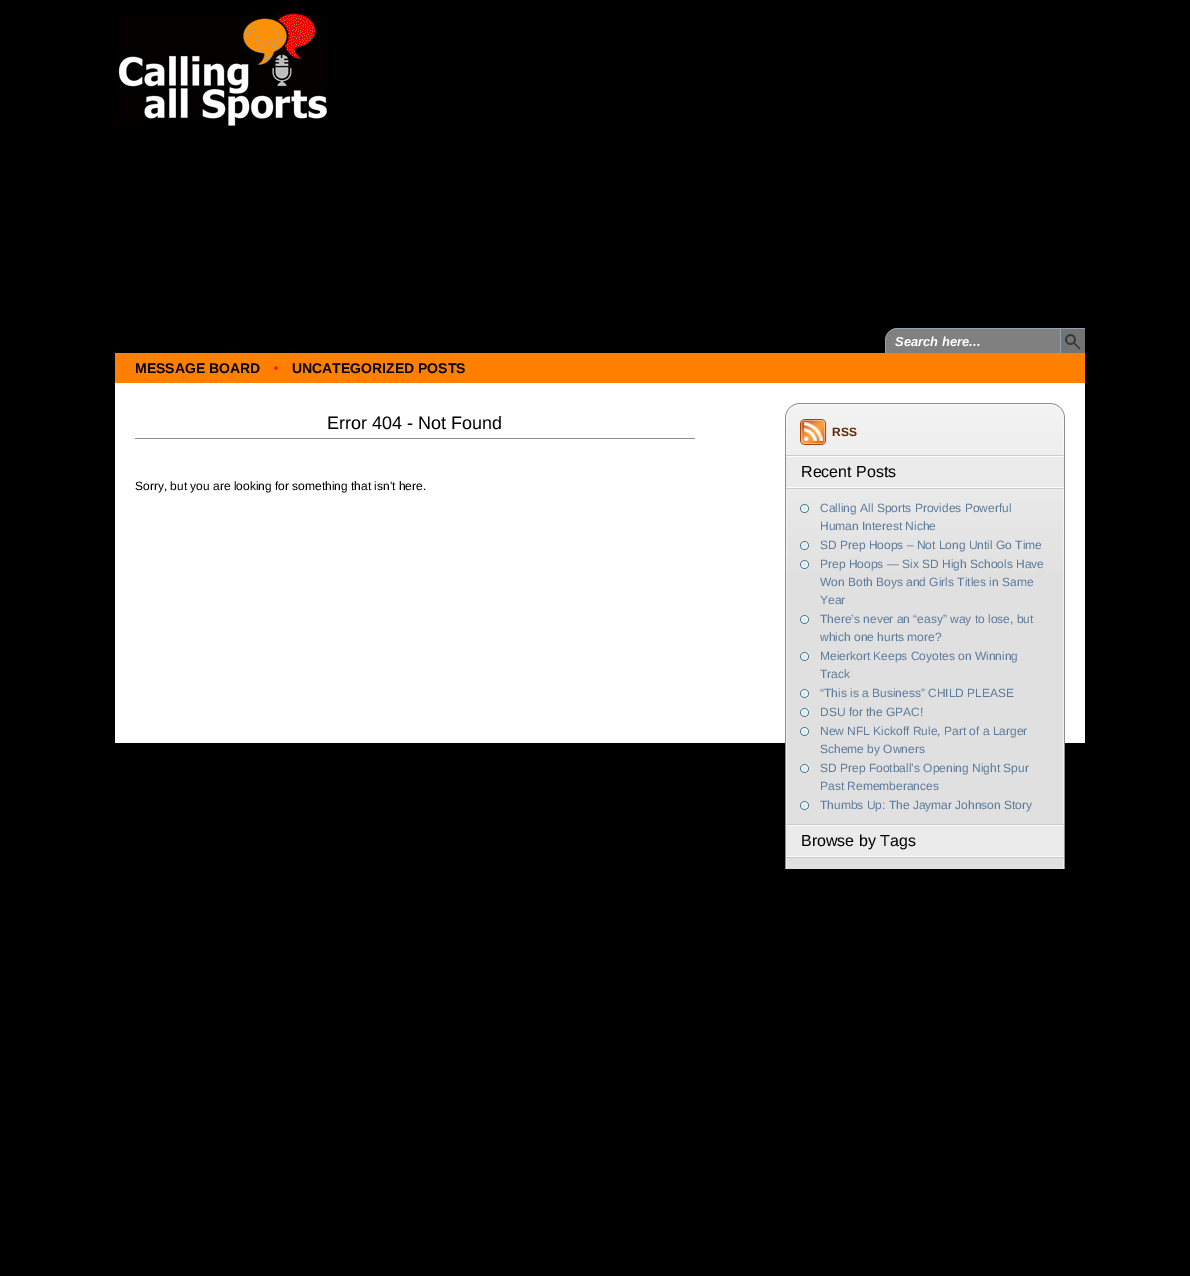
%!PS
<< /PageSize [1190 1276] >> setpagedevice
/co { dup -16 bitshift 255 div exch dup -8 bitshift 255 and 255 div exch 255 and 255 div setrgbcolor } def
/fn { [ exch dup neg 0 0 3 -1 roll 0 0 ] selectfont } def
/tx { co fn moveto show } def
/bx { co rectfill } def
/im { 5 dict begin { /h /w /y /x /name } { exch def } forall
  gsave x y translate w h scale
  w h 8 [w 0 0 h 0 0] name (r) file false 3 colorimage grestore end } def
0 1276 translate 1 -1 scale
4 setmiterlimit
0 0 1190 1276 16#000000 bx
(media/1.raw) 118 13 209 113 im
(media/2.raw) 885 328 200 25 im
115 353 970 30 16#FF7F00 bx
115 383 970 360 16#FFFFFF bx
135 438 560 1 16#8C8C8C bx
(media/3.raw) 785 403 265 170 im
(media/4.raw) 1050 403 15 170 im
(media/5.raw) 785 573 265 296 im
(media/6.raw) 1050 573 15 296 im
(media/7.raw) 800 419 27 26 im
786 456 278 32 16#FBFBFB bx
786 455 278 1 16#CCCCCC bx
786 488 278 1 16#CCCCCC bx
786 457 278 30 16#EBEBEB bx
(media/8.raw) 800 504 9 9 im
(media/8.raw) 800 541 9 9 im
(media/8.raw) 800 560 9 9 im
(media/8.raw) 800 615 9 9 im
(media/8.raw) 800 652 9 9 im
(media/8.raw) 800 689 9 9 im
(media/8.raw) 800 708 9 9 im
(media/8.raw) 800 727 9 9 im
(media/8.raw) 800 764 9 9 im
(media/8.raw) 800 801 9 9 im
786 825 278 32 16#FBFBFB bx
786 824 278 1 16#CCCCCC bx
786 857 278 1 16#CCCCCC bx
786 826 278 30 16#EBEBEB bx
(Search here...) 895 346 /LiberationSans-BoldItalic 13 16#FFFFFF tx
(MESSAGE BOARD) 135 373 /LiberationSans-Bold 14 16#000000 tx
(•) 274 372 /LiberationSans-Regular 12 16#FE0000 tx
(UNCATEGORIZED POSTS) 292 373 /LiberationSans-Bold 14 16#000000 tx
(Error 404 - Not Found) 327 429 /LiberationSans-Regular 18 16#000000 tx
(Sorry, but you are looking for something that isn't here.) 135 490 /LiberationSans-Regular 12 16#000000 tx
(RSS) 832 436 /LiberationSans-Bold 12 16#662700 tx
(Recent Posts) 801 477 /LiberationSans-Regular 16 16#000000 tx
(Calling All Sports Provides Powerful) 820 512 /LiberationSans-Regular 12 16#5C7A99 tx
(Human Interest Niche) 820 530 /LiberationSans-Regular 12 16#5C7A99 tx
(SD Prep Hoops – Not Long Until Go Time) 820 549 /LiberationSans-Regular 12 16#5C7A99 tx
(Prep Hoops — Six SD High Schools Have) 820 568 /LiberationSans-Regular 12 16#5C7A99 tx
(Won Both Boys and Girls Titles in Same) 820 586 /LiberationSans-Regular 12 16#5C7A99 tx
(Year) 820 604 /LiberationSans-Regular 12 16#5C7A99 tx
(There’s never an “easy” way to lose, but) 820 623 /LiberationSans-Regular 12 16#5C7A99 tx
(which one hurts more?) 820 641 /LiberationSans-Regular 12 16#5C7A99 tx
(Meierkort Keeps Coyotes on Winning) 820 660 /LiberationSans-Regular 12 16#5C7A99 tx
(Track) 820 678 /LiberationSans-Regular 12 16#5C7A99 tx
(“This is a Business” CHILD PLEASE) 820 697 /LiberationSans-Regular 12 16#5C7A99 tx
(DSU for the GPAC!) 820 716 /LiberationSans-Regular 12 16#5C7A99 tx
(New NFL Kickoff Rule, Part of a Larger) 820 735 /LiberationSans-Regular 12 16#5C7A99 tx
(Scheme by Owners) 820 753 /LiberationSans-Regular 12 16#5C7A99 tx
(SD Prep Football’s Opening Night Spur) 820 772 /LiberationSans-Regular 12 16#5C7A99 tx
(Past Rememberances) 820 790 /LiberationSans-Regular 12 16#5C7A99 tx
(Thumbs Up: The Jaymar Johnson Story) 820 809 /LiberationSans-Regular 12 16#5C7A99 tx
(Browse by Tags) 801 846 /LiberationSans-Regular 16 16#000000 tx
showpage
